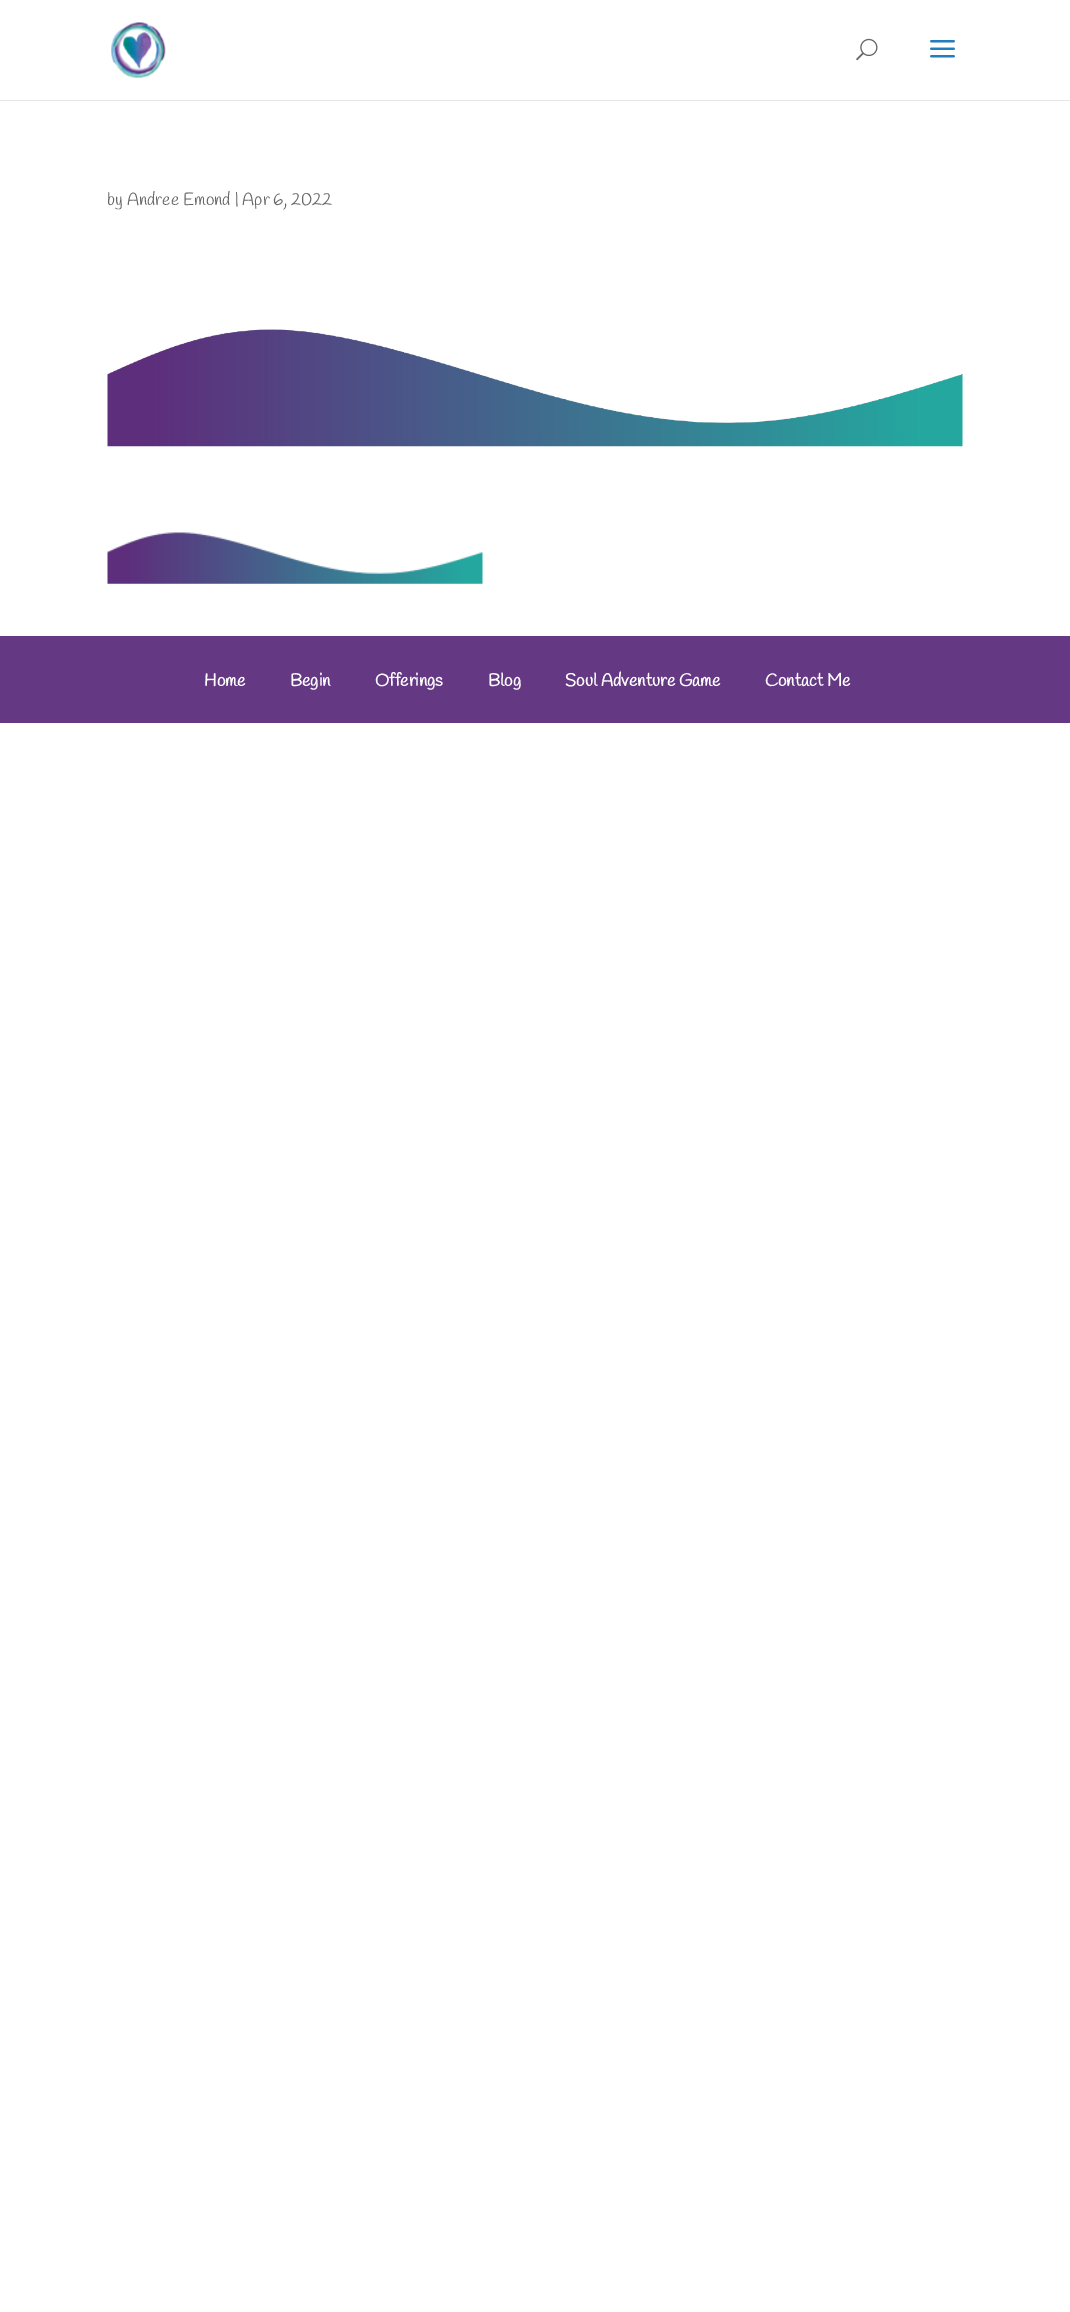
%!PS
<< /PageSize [1070 2312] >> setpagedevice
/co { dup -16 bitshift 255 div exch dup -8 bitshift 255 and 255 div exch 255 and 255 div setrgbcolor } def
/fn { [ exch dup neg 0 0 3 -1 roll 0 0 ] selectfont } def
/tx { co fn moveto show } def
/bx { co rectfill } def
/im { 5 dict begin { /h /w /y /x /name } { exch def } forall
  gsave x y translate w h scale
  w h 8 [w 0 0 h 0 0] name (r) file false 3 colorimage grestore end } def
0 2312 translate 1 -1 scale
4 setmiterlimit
0 0 1070 2312 16#FFFFFF bx
0 100 1070 1 16#E6E6E6 bx
(media/1.raw) 111 22 55 56 im
(media/2.raw) 856 38 22 23 im
(media/3.raw) 930 40 25 18 im
(media/4.raw) 107 329 856 118 im
(media/5.raw) 107 532 376 52 im
0 636 1070 87 16#653883 bx
(by Andree Emond | Apr 6, 2022) 107 205 /Handlee-Regular 17.5 16#666666 tx
(Home) 204 686 /Handlee-Bold 17.5 16#FFFFFF tx
(Begin) 290 686 /Handlee-Bold 17.5 16#FFFFFF tx
(Offerings) 375 686 /Handlee-Bold 17.5 16#FFFFFF tx
(Blog) 488 686 /Handlee-Bold 17.5 16#FFFFFF tx
(Soul Adventure Game) 565 686 /Handlee-Bold 17.5 16#FFFFFF tx
(Contact Me) 765 686 /Handlee-Bold 17.5 16#FFFFFF tx
showpage
